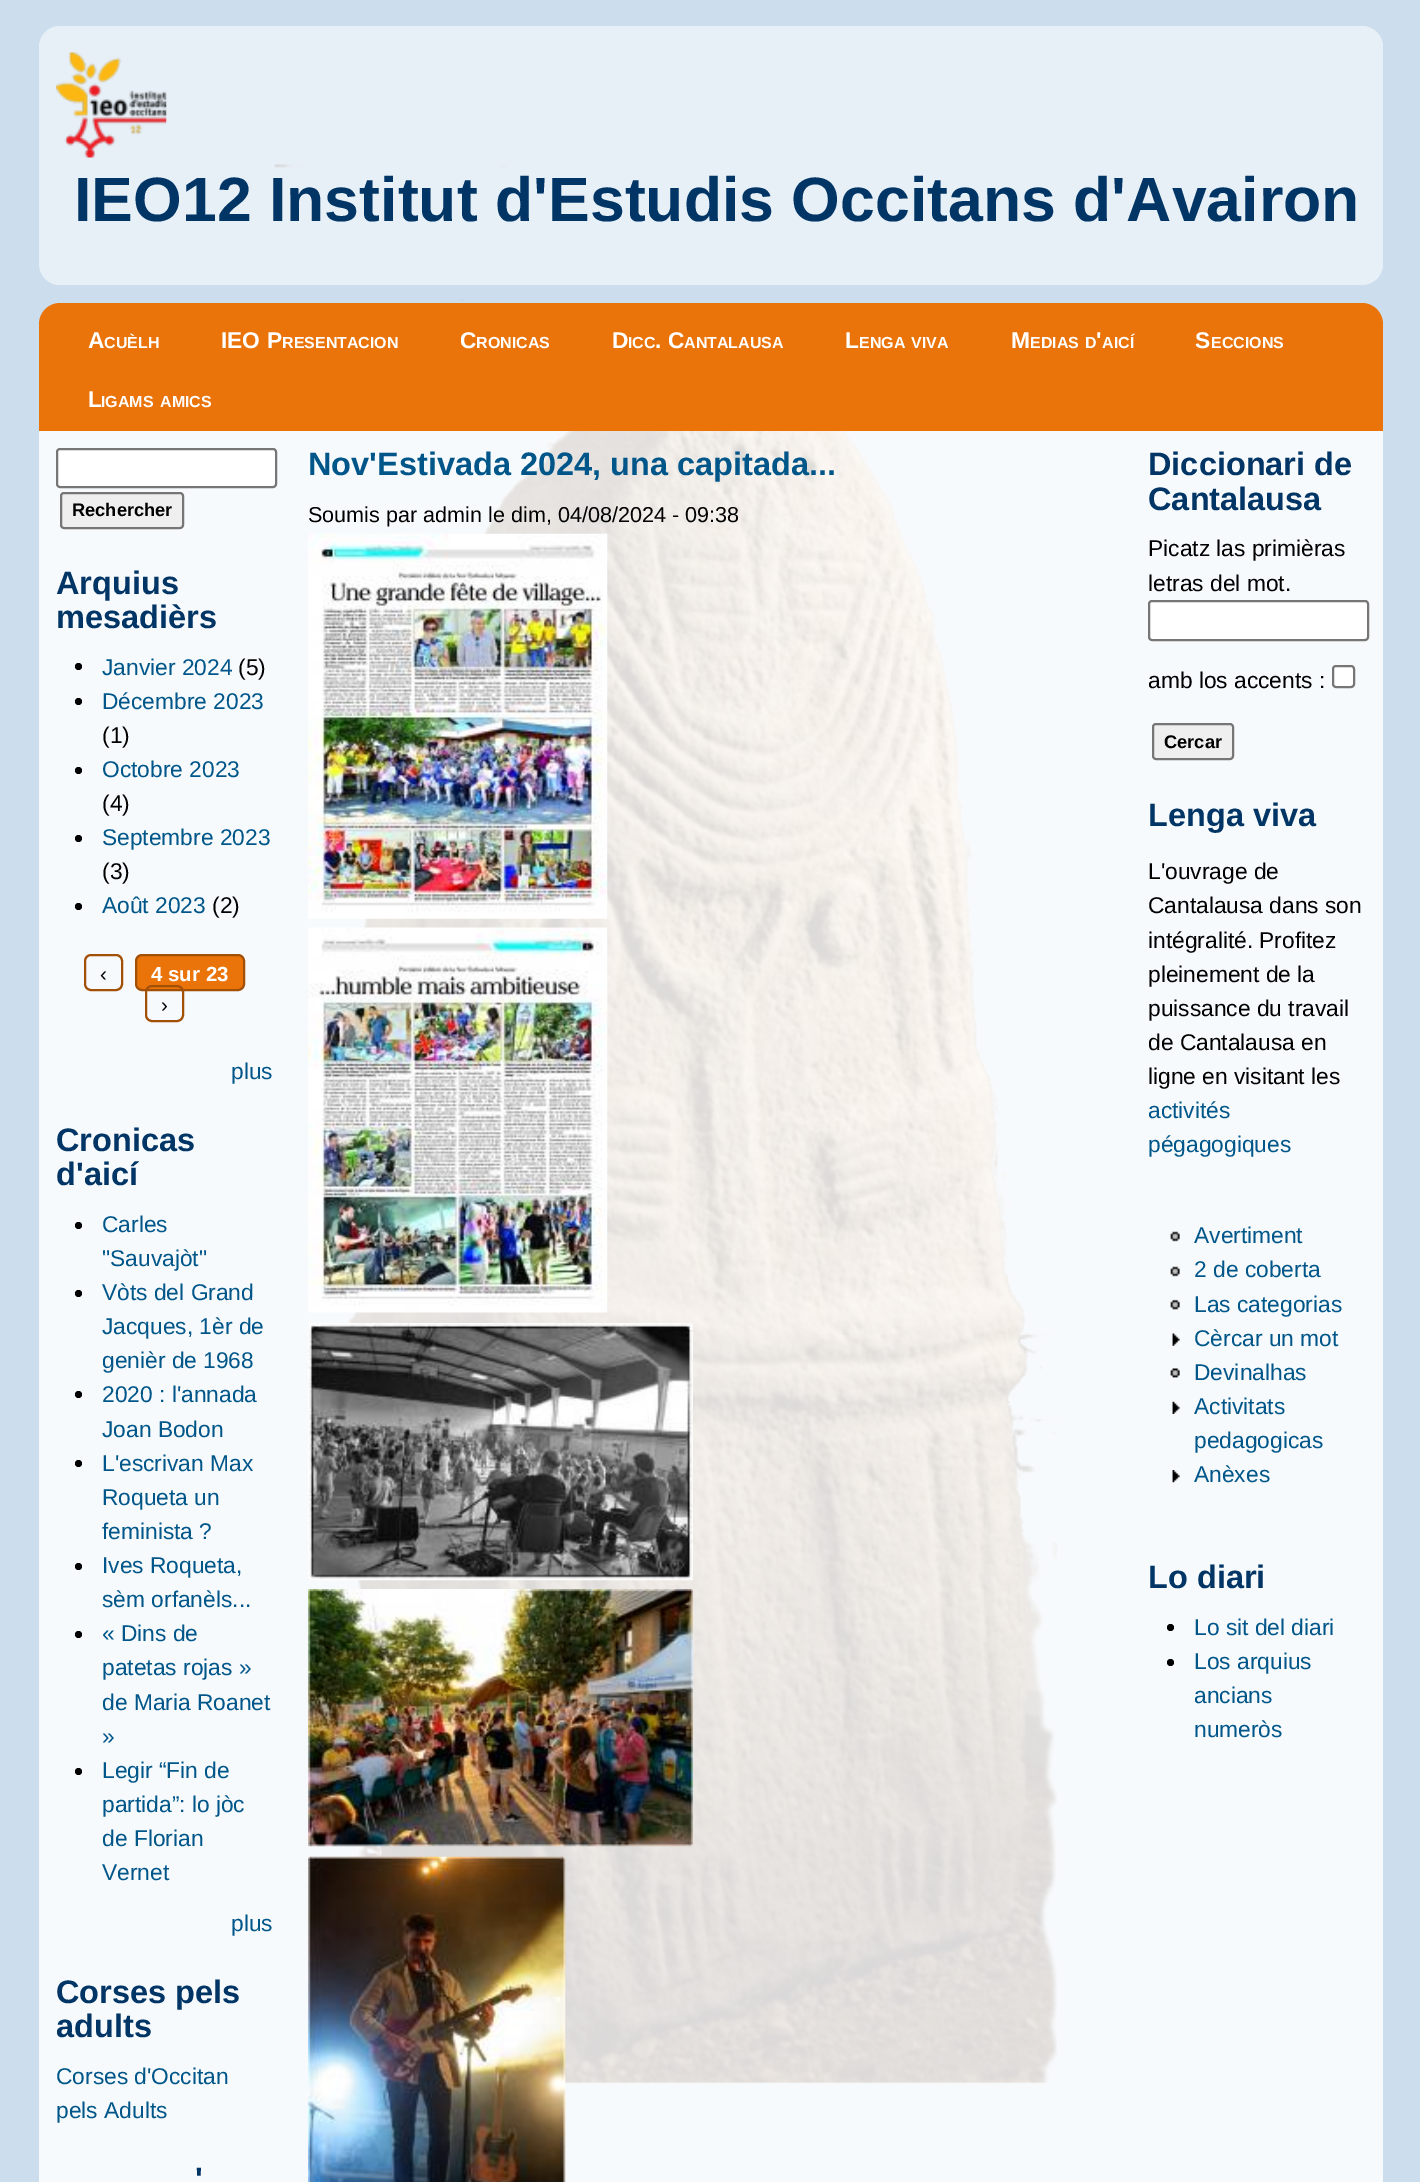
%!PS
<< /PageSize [1420 2182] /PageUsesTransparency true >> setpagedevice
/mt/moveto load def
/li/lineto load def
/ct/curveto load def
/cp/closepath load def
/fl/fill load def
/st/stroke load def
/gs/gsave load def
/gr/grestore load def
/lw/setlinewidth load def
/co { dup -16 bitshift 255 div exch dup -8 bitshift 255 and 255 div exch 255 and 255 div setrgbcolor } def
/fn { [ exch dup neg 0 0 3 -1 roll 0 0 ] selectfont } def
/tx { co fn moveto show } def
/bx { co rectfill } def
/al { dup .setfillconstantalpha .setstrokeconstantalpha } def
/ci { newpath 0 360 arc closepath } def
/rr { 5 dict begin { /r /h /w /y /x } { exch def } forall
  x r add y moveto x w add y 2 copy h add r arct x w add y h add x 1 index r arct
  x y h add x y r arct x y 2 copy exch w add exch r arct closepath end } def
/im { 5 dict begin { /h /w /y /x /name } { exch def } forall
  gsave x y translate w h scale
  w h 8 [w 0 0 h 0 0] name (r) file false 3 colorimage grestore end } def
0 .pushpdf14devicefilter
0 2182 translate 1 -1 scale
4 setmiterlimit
0 0 1420 2182 16#CCDDEE bx
(media/1.raw) 274 164 784 1921 im
0.55 al
16#FFFFFF co
39 26 1344 259 21 rr fl
1 al
(media/2.raw) 56 52 111 106 im
16#EA730A co
60 303 mt 1362 303 li 1373.5 303 1383 312.5 1383 324 ct 1383 431 li 39 431 li 39 324 li 39 312.5 48.5 303 60 303 ct cp fl
0.85 al
39 431 1344 1751 16#FFFFFF bx
1 al
57 449 219 38 3 rr gs fl gr
16#767676 co
2 lw
st
16#EFEFEF co
61 493 122 35 3 rr gs fl gr
16#767676 co
st
16#000000 co
78.5 666.5 3.5 ci fl
78.5 701.5 3.5 ci fl
78.5 770.5 3.5 ci fl
78.5 838.5 3.5 ci fl
78.5 906.5 3.5 ci fl
16#A35007 co
85 955 37 35 6 rr st
16#EA730A co
136 955 108 35 6 rr gs fl gr
16#A35007 co
st
146 986 37 35 6 rr st
16#000000 co
78.5 1225.5 3.5 ci fl
78.5 1293.5 3.5 ci fl
78.5 1394.5 3.5 ci fl
78.5 1463.5 3.5 ci fl
78.5 1566.5 3.5 ci fl
78.5 1634.5 3.5 ci fl
78.5 1771.5 3.5 ci fl
(media/3.raw) 308 533 300 386 im
(media/4.raw) 308 927 300 386 im
(media/5.raw) 308 1323 385 258 im
(media/6.raw) 308 1589 385 258 im
(media/7.raw) 308 1856 258 326 im
16#FFFFFF co
1149 601 219 39 3 rr gs fl gr
16#767676 co
st
16#FFFFFF co
1333 666 21 21 3 rr gs fl gr
16#767676 co
st
16#EFEFEF co
1153 724 80 35 3 rr gs fl gr
16#767676 co
st
(media/8.raw) 1170 1231 10 11 im
(media/8.raw) 1170 1266 10 11 im
(media/9.raw) 1170 1299 10 11 im
(media/10.raw) 1172 1333 8 13 im
(media/11.raw) 1170 1368 10 10 im
(media/12.raw) 1172 1401 8 13 im
(media/13.raw) 1172 1470 8 13 im
16#000000 co
1170.5 1627.5 3.5 ci fl
1170.5 1662.5 3.5 ci fl
(IEO12 Institut d'Estudis Occitans d'Avairon) 74 221 /LiberationSans-Bold 62.6 16#013565 tx
(A) 88 348 /LiberationSans-Bold 22.75 16#FFFFFF tx
(CUÈLH) 104 348 /LiberationSans-Bold 16 16#FFFFFF tx
(IEO P) 221 348 /LiberationSans-Bold 22.75 16#FFFFFF tx
(RESENTACION) 282 348 /LiberationSans-Bold 16 16#FFFFFF tx
(C) 460 348 /LiberationSans-Bold 22.75 16#FFFFFF tx
(RONICAS) 476 348 /LiberationSans-Bold 16 16#FFFFFF tx
(D) 612 348 /LiberationSans-Bold 22.75 16#FFFFFF tx
(ICC) 628 348 /LiberationSans-Bold 16 16#FFFFFF tx
(. C) 655 348 /LiberationSans-Bold 22.75 16#FFFFFF tx
(ANTALAUSA) 684 348 /LiberationSans-Bold 16 16#FFFFFF tx
(L) 845 348 /LiberationSans-Bold 22.75 16#FFFFFF tx
(ENGA) 859 348 /LiberationSans-Bold 16 16#FFFFFF tx
(VIVA) 911 348 /LiberationSans-Bold 16 16#FFFFFF tx
(M) 1011 348 /LiberationSans-Bold 22.75 16#FFFFFF tx
(EDIAS) 1030 348 /LiberationSans-Bold 16 16#FFFFFF tx
(D) 1085 348 /LiberationSans-Bold 16 16#FFFFFF tx
(') 1096 348 /LiberationSans-Bold 22.75 16#FFFFFF tx
(AICÍ) 1102 348 /LiberationSans-Bold 16 16#FFFFFF tx
(S) 1195 348 /LiberationSans-Bold 22.75 16#FFFFFF tx
(ECCIONS) 1211 348 /LiberationSans-Bold 16 16#FFFFFF tx
(L) 88 407 /LiberationSans-Bold 22.75 16#FFFFFF tx
(IGAMS) 101 407 /LiberationSans-Bold 16 16#FFFFFF tx
(AMICS) 160 407 /LiberationSans-Bold 16 16#FFFFFF tx
(Rechercher) 72 516 /LiberationSans-Bold 18.25 16#000000 tx
(Arquius) 56 594 /LiberationSans-Bold 32.5 16#013565 tx
(mesadièrs) 56 628 /LiberationSans-Bold 32.5 16#013565 tx
(Janvier 2024) 102 675 /LiberationSans-Regular 22.75 16#005689 tx
(\(5\)) 238 675 /LiberationSans-Regular 22.75 16#000000 tx
(Décembre 2023) 102 709 /LiberationSans-Regular 22.75 16#005689 tx
(\(1\)) 102 743 /LiberationSans-Regular 22.75 16#000000 tx
(Octobre 2023) 102 777 /LiberationSans-Regular 22.75 16#005689 tx
(\(4\)) 102 811 /LiberationSans-Regular 22.75 16#000000 tx
(Septembre 2023) 102 845 /LiberationSans-Regular 22.75 16#005689 tx
(\(3\)) 102 879 /LiberationSans-Regular 22.75 16#000000 tx
(Août 2023) 102 913 /LiberationSans-Regular 22.75 16#005689 tx
(\(2\)) 212 913 /LiberationSans-Regular 22.75 16#000000 tx
(‹) 100 981 /LiberationSans-Regular 20.5 16#000000 tx
(4 sur 23) 151 981 /LiberationSans-Bold 20.5 16#FFFFFF tx
(›) 161 1012 /LiberationSans-Regular 20.5 16#000000 tx
(plus) 231 1079 /LiberationSans-Regular 22.75 16#005689 tx
(Cronicas) 56 1151 /LiberationSans-Bold 32.5 16#013565 tx
(d'aicí) 56 1185 /LiberationSans-Bold 32.5 16#013565 tx
(Carles) 102 1232 /LiberationSans-Regular 22.75 16#005689 tx
("Sauvajòt") 102 1266 /LiberationSans-Regular 22.75 16#005689 tx
(Vòts del Grand) 102 1300 /LiberationSans-Regular 22.75 16#005689 tx
(Jacques, 1èr de) 102 1334 /LiberationSans-Regular 22.75 16#005689 tx
(genièr de 1968) 102 1368 /LiberationSans-Regular 22.75 16#005689 tx
(2020 : l'annada) 102 1402 /LiberationSans-Regular 22.75 16#005689 tx
(Joan Bodon) 102 1437 /LiberationSans-Regular 22.75 16#005689 tx
(L'escrivan Max) 102 1471 /LiberationSans-Regular 22.75 16#005689 tx
(Roqueta un) 102 1505 /LiberationSans-Regular 22.75 16#005689 tx
(feminista ?) 102 1539 /LiberationSans-Regular 22.75 16#005689 tx
(Ives Roqueta,) 102 1573 /LiberationSans-Regular 22.75 16#005689 tx
(sèm orfanèls...) 102 1607 /LiberationSans-Regular 22.75 16#005689 tx
(« Dins de) 102 1641 /LiberationSans-Regular 22.75 16#005689 tx
(patetas rojas ») 102 1675 /LiberationSans-Regular 22.75 16#005689 tx
(de Maria Roanet) 102 1710 /LiberationSans-Regular 22.75 16#005689 tx
(») 102 1744 /LiberationSans-Regular 22.75 16#005689 tx
(Legir “Fin de) 102 1778 /LiberationSans-Regular 22.75 16#005689 tx
(partida”: lo jòc) 102 1812 /LiberationSans-Regular 22.75 16#005689 tx
(de Florian) 102 1846 /LiberationSans-Regular 22.75 16#005689 tx
(Vernet) 102 1880 /LiberationSans-Regular 22.75 16#005689 tx
(plus) 231 1931 /LiberationSans-Regular 22.75 16#005689 tx
(Corses pels) 56 2003 /LiberationSans-Bold 32.5 16#013565 tx
(adults) 56 2037 /LiberationSans-Bold 32.5 16#013565 tx
(Corses d'Occitan) 56 2084 /LiberationSans-Regular 22.75 16#005689 tx
(pels Adults) 56 2118 /LiberationSans-Regular 22.75 16#005689 tx
(') 195 2190 /LiberationSans-Bold 32.5 16#013565 tx
(Nov'Estivada 2024, una capitada...) 308 475 /LiberationSans-Bold 32.5 16#005689 tx
(Soumis par admin le dim, 04/08/2024 - 09:38) 308 522 /LiberationSans-Regular 21.6 16#000000 tx
(Diccionari de) 1148 475 /LiberationSans-Bold 32.5 16#013565 tx
(Cantalausa) 1148 510 /LiberationSans-Bold 32.5 16#013565 tx
(Picatz las primièras) 1148 556 /LiberationSans-Regular 22.75 16#000000 tx
(letras del mot.) 1148 591 /LiberationSans-Regular 22.75 16#000000 tx
(amb los accents :) 1148 688 /LiberationSans-Regular 22.75 16#000000 tx
(Cercar) 1164 748 /LiberationSans-Bold 18.25 16#000000 tx
(Lenga viva) 1148 826 /LiberationSans-Bold 32.5 16#013565 tx
(L'ouvrage de) 1148 879 /LiberationSans-Regular 22.75 16#000000 tx
(Cantalausa dans son) 1148 913 /LiberationSans-Regular 22.75 16#000000 tx
(intégralité. Profitez) 1148 948 /LiberationSans-Regular 22.75 16#000000 tx
(pleinement de la) 1148 982 /LiberationSans-Regular 22.75 16#000000 tx
(puissance du travail) 1148 1016 /LiberationSans-Regular 22.75 16#000000 tx
(de Cantalausa en) 1148 1050 /LiberationSans-Regular 22.75 16#000000 tx
(ligne en visitant les) 1148 1084 /LiberationSans-Regular 22.75 16#000000 tx
(activités) 1148 1118 /LiberationSans-Regular 22.75 16#005689 tx
(pégagogiques) 1148 1152 /LiberationSans-Regular 22.75 16#005689 tx
(Avertiment) 1194 1243 /LiberationSans-Regular 22.75 16#005689 tx
(2 de coberta) 1194 1277 /LiberationSans-Regular 22.75 16#005689 tx
(Las categorias) 1194 1312 /LiberationSans-Regular 22.75 16#005689 tx
(Cèrcar un mot) 1194 1346 /LiberationSans-Regular 22.75 16#005689 tx
(Devinalhas) 1194 1380 /LiberationSans-Regular 22.75 16#005689 tx
(Activitats) 1194 1414 /LiberationSans-Regular 22.75 16#005689 tx
(pedagogicas) 1194 1448 /LiberationSans-Regular 22.75 16#005689 tx
(Anèxes) 1194 1482 /LiberationSans-Regular 22.75 16#005689 tx
(Lo diari) 1148 1588 /LiberationSans-Bold 32.5 16#013565 tx
(Lo sit del diari) 1194 1635 /LiberationSans-Regular 22.75 16#005689 tx
(Los arquius) 1194 1669 /LiberationSans-Regular 22.75 16#005689 tx
(ancians) 1194 1703 /LiberationSans-Regular 22.75 16#005689 tx
(numeròs) 1194 1737 /LiberationSans-Regular 22.75 16#005689 tx
.poppdf14devicefilter showpage
